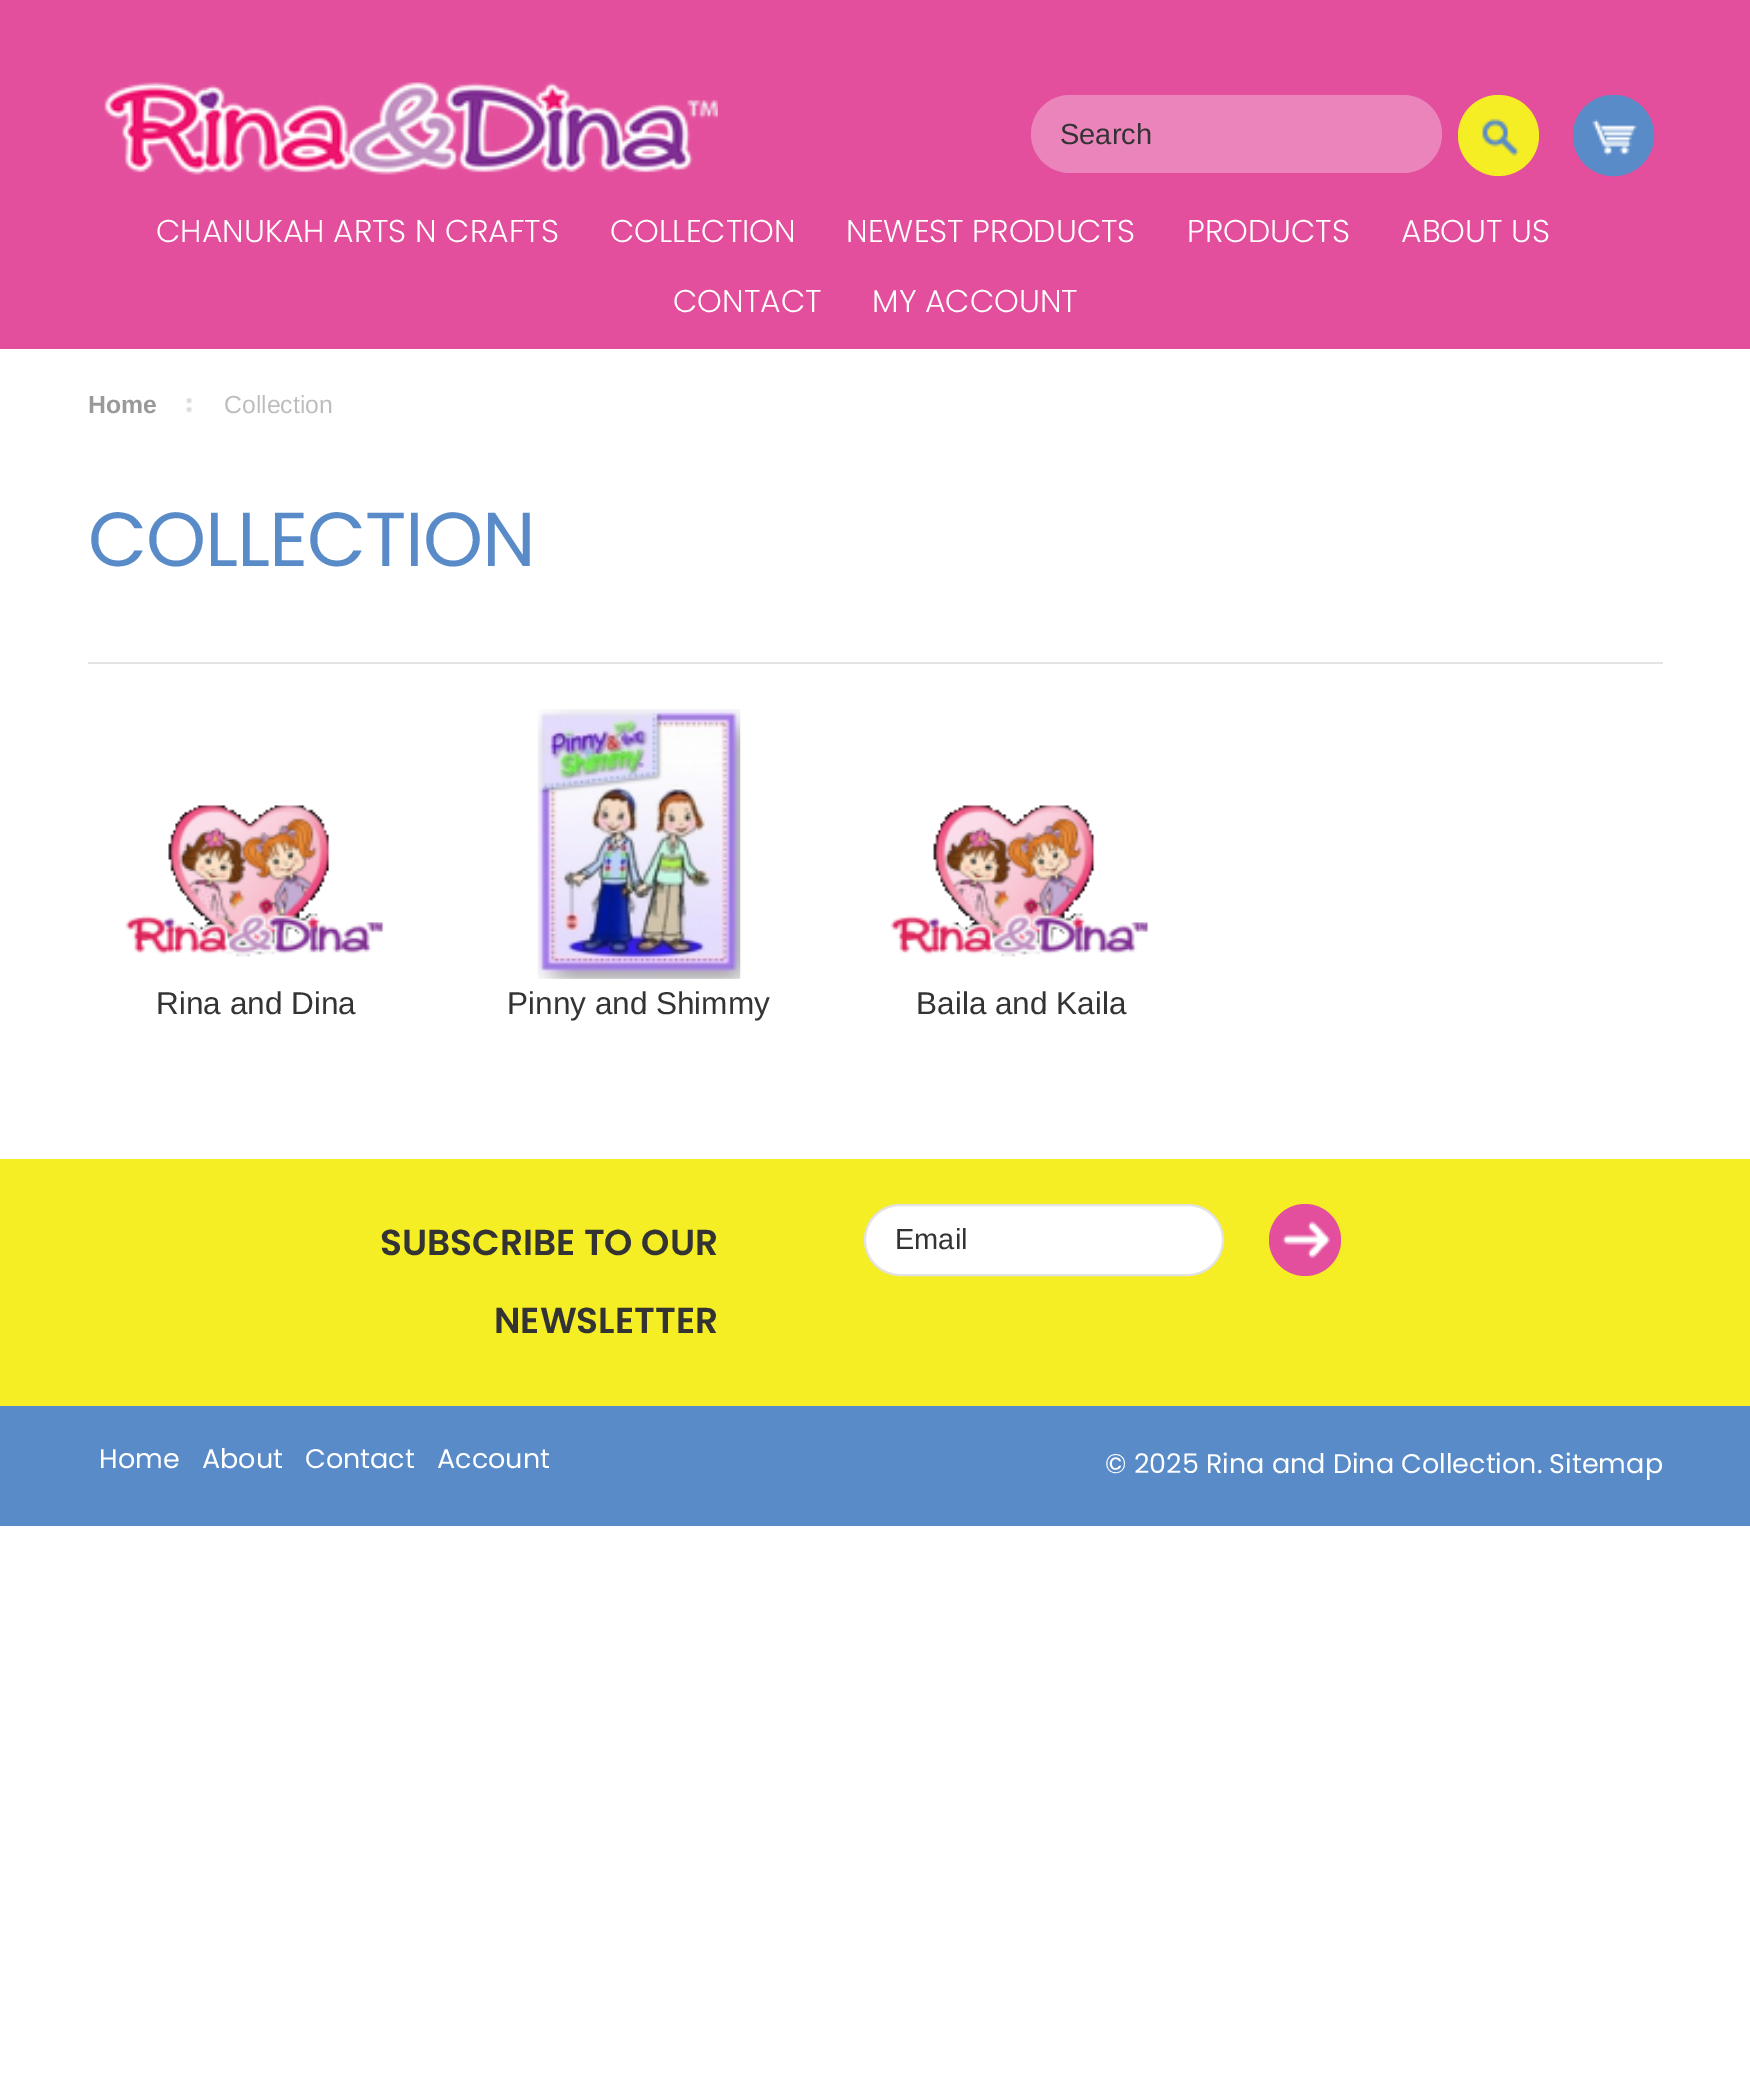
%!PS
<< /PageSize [1750 2097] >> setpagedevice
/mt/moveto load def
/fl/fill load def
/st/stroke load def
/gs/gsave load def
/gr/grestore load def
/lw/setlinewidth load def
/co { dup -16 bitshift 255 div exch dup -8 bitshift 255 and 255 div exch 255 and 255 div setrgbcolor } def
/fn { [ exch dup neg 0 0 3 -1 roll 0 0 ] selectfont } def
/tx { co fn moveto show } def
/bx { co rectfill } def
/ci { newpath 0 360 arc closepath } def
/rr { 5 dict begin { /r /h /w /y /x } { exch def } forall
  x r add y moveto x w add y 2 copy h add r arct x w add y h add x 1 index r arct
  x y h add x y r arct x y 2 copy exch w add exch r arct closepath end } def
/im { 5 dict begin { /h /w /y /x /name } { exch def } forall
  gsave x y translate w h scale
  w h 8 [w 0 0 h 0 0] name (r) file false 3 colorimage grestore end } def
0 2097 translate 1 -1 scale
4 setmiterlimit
0 0 1750 2097 16#FFFFFF bx
0 0 1750 349 16#E34F9D bx
(media/1.raw) 104 82 614 93 im
16#EB84BB co
1031 95 411 78 39 rr fl
16#F6EE24 co
1498.5 135.5 40.5 ci fl
(media/2.raw) 1482 118 38 38 im
16#598BC8 co
1613.5 135.5 40.5 ci fl
(media/3.raw) 1592 119 45 37 im
2 lw
1613.5 135.5 39.5 ci st
(media/4.raw) 186 397 6 16 im
88 662 1575 2 16#E3E3E3 bx
(media/5.raw) 125 805 259 152 im
(media/6.raw) 537 709 204 270 im
(media/7.raw) 890 805 259 152 im
0 1159 1750 247 16#F6EE24 bx
16#FFFFFF co
865 1205 358 70 35 rr gs fl gr
16#E3E3E3 co
st
16#E34F9D co
1305 1240 36 ci fl
(media/8.raw) 1282 1221 48 37 im
0 1406 1750 120 16#598BC8 bx
(Search) 1060 144 /LiberationSans-Regular 29 16#333333 tx
(CHANUKAH ARTS N CRAFTS) 156 242 /Poppins-Light 31.5 16#FFFFFF tx
(COLLECTION) 610 242 /Poppins-Light 31.5 16#FFFFFF tx
(NEWEST PRODUCTS) 846 242 /Poppins-Light 31.5 16#FFFFFF tx
(PRODUCTS) 1187 242 /Poppins-Light 31.5 16#FFFFFF tx
(ABOUT US) 1401 242 /Poppins-Light 31.5 16#FFFFFF tx
(CONTACT) 673 312 /Poppins-Light 31.5 16#FFFFFF tx
(MY ACCOUNT) 872 312 /Poppins-Light 31.5 16#FFFFFF tx
(Home) 88 413 /LiberationSans-Bold 24.75 16#999999 tx
(Collection) 224 413 /LiberationSans-Regular 24.75 16#BEBEBE tx
/Poppins-Regular 76.5 fn
16#598BC8 co
88 566 mt -1.1 0 (COLLECTION) ashow
(Rina and Dina) 156 1014 /LiberationSans-Regular 31.5 16#333333 tx
(Pinny and Shimmy) 507 1014 /LiberationSans-Regular 31.5 16#333333 tx
(Baila and Kaila) 916 1014 /LiberationSans-Regular 31.5 16#333333 tx
(SUBSCRIBE TO OUR) 380 1255 /Poppins-SemiBold 36 16#333333 tx
(NEWSLETTER) 494 1333 /Poppins-SemiBold 36 16#333333 tx
(Email) 895 1249 /LiberationSans-Regular 29 16#333333 tx
(Home) 99 1468 /Poppins-Regular 27 16#FFFFFF tx
(About) 202 1468 /Poppins-Regular 27 16#FFFFFF tx
(Contact) 305 1468 /Poppins-Regular 27 16#FFFFFF tx
(Account) 437 1468 /Poppins-Regular 27 16#FFFFFF tx
(© 2025 Rina and Dina Collection. Sitemap) 1105 1473 /Poppins-Regular 27 16#FFFFFF tx
showpage
